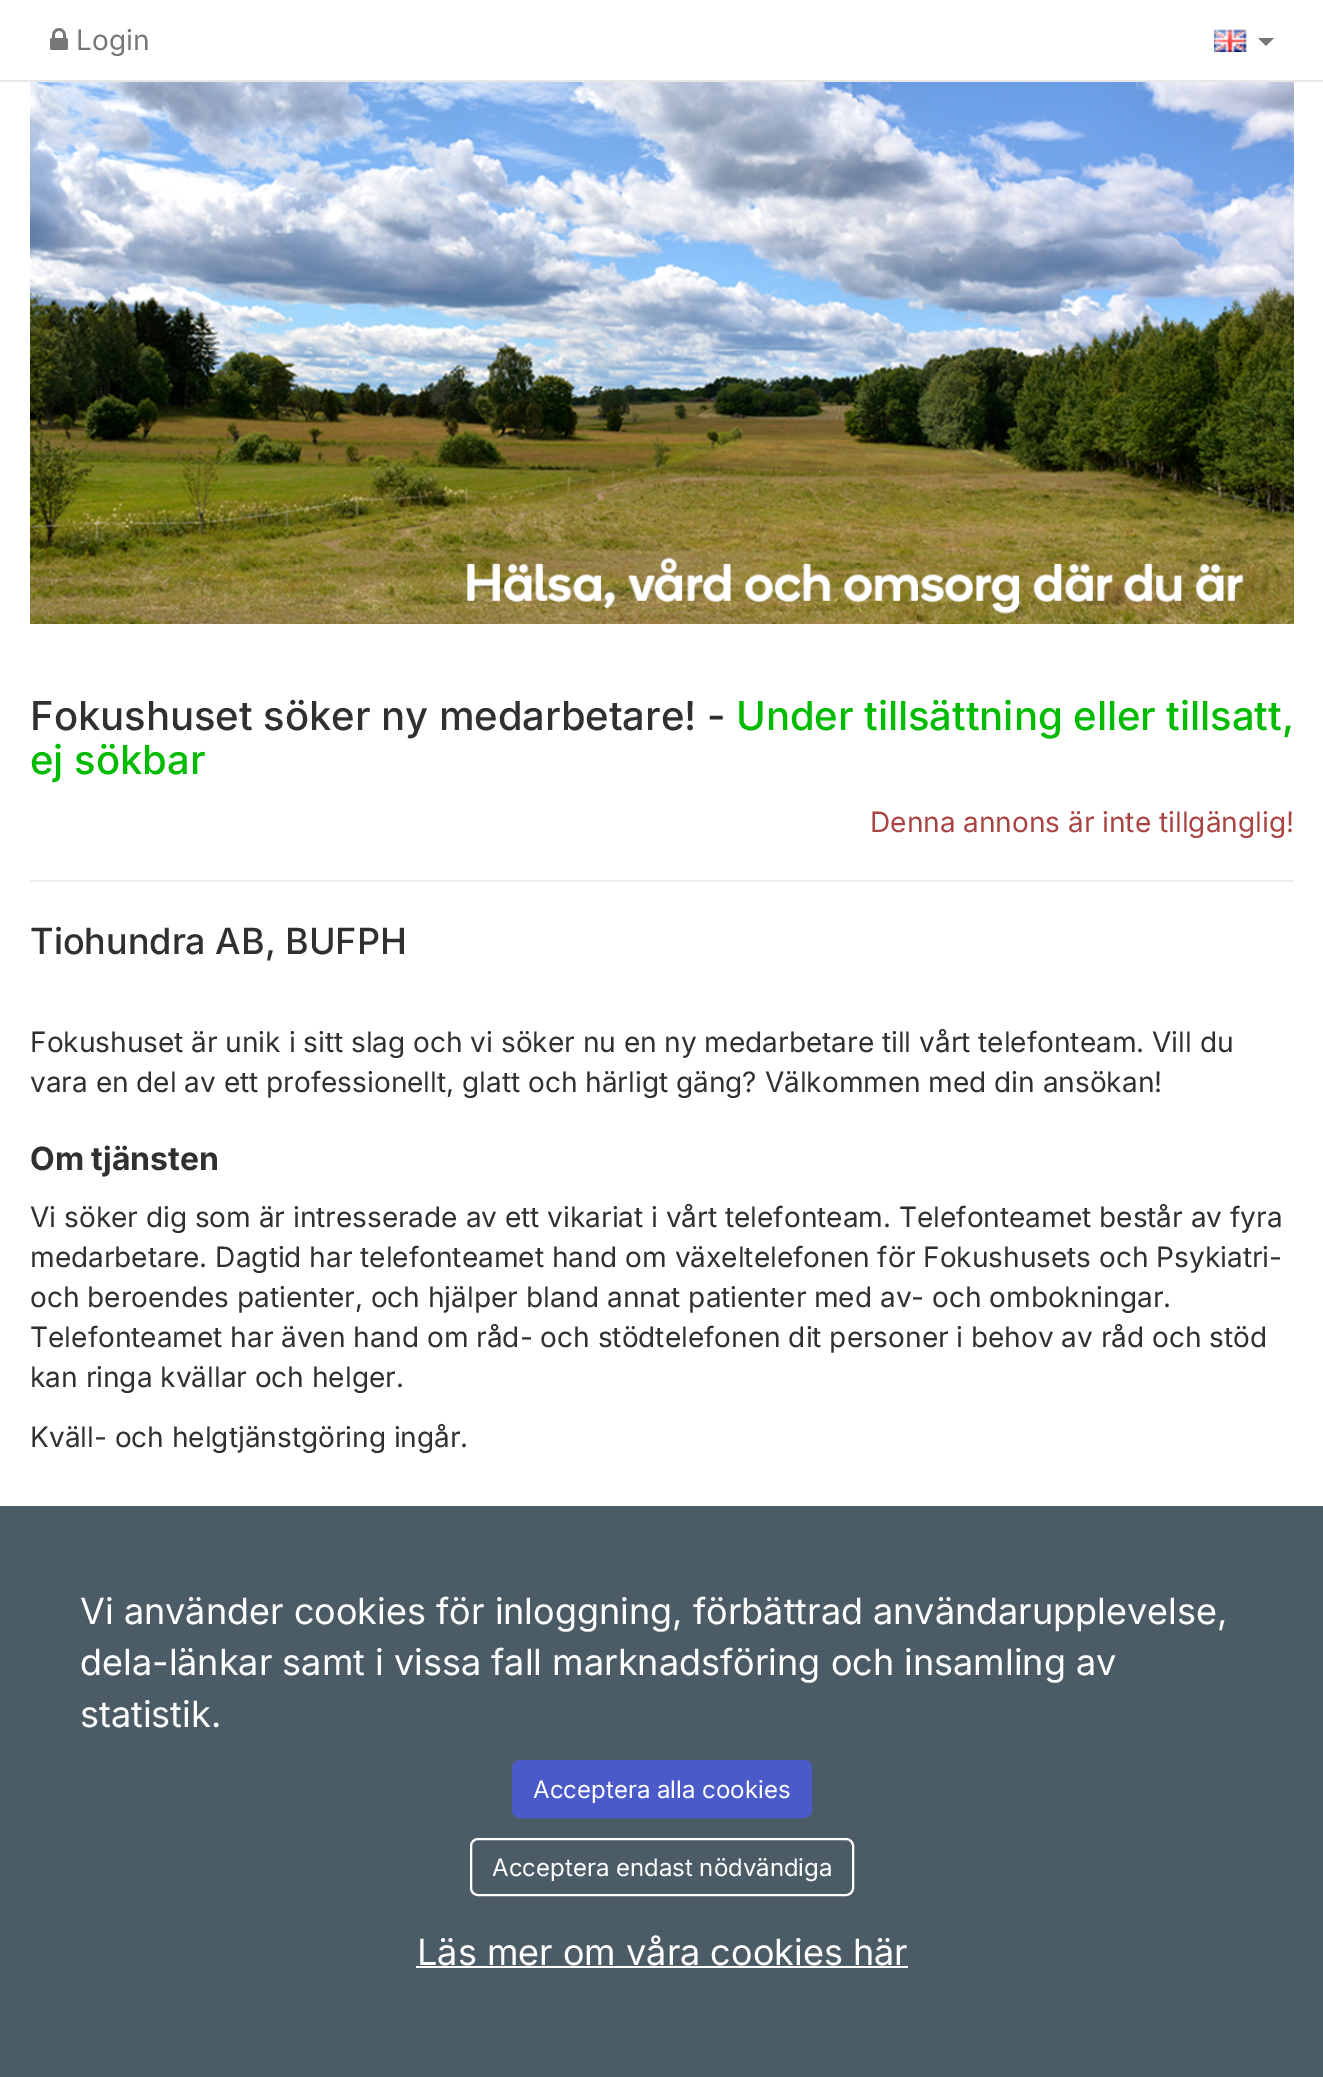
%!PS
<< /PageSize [1323 2077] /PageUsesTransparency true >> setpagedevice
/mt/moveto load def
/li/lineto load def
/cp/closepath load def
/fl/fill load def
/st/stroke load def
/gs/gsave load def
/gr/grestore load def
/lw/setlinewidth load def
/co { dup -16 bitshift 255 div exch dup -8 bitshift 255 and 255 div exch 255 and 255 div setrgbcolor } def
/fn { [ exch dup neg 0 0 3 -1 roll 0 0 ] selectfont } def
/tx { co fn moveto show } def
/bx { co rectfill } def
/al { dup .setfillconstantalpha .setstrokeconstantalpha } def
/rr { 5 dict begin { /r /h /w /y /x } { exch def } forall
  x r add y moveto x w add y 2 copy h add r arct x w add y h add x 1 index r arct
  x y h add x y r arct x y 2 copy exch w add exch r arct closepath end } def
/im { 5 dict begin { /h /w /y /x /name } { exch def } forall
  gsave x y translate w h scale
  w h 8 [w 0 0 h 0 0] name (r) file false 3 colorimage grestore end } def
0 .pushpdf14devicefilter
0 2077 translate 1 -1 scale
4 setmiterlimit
0 0 1323 2077 16#FFFFFF bx
0 80 1323 2 16#E7E7E7 bx
(media/1.raw) 50 28 18 22 im
(media/2.raw) 1214 29 33 23 im
16#777777 co
1258 38 mt 1274 38 li 1266 46 li cp fl
(media/3.raw) 30 82 1264 542 im
30 880 1264 2 16#EEEEEE bx
0.9 al
0 1506 1323 571 16#384A57 bx
1 al
16#4A5BC9 co
513 1761 298 56 7 rr gs fl gr
2 lw
st
16#FFFFFF co
471 1839 382 56 7 rr st
416 1966 492 2 16#FFFFFF bx
(Login) 76 50 /Inter-Regular 28 16#777777 tx
(Fokushuset söker ny medarbetare! -) 30 730 /Inter-Medium 40 16#2F3030 tx
(Under tillsättning eller tillsatt,) 736 730 /Inter-Medium 40 16#00BB00 tx
(ej sökbar) 30 774 /Inter-Medium 40 16#00BB00 tx
(Denna annons är inte tillgänglig!) 870 832 /Inter-Regular 28 16#A94442 tx
(Tiohundra AB, BUFPH) 30 954 /Inter-Medium 36 16#2F3030 tx
(Fokushuset är unik i sitt slag och vi söker nu en ny medarbetare till vårt telefonteam. Vill du) 30 1052 /Inter-Regular 28 16#2F3030 tx
(vara en del av ett professionellt, glatt och härligt gäng? Välkommen med din ansökan!) 30 1092 /Inter-Regular 28 16#2F3030 tx
(Om tjänsten) 30 1170 /Inter-Bold 32 16#2F3030 tx
(Vi söker dig som är intresserade av ett vikariat i vårt telefonteam. Telefonteamet består av fyra) 30 1227 /Inter-Regular 28 16#2F3030 tx
(medarbetare. Dagtid har telefonteamet hand om växeltelefonen för Fokushusets och Psykiatri-) 30 1267 /Inter-Regular 28 16#2F3030 tx
(och beroendes patienter, och hjälper bland annat patienter med av- och ombokningar.) 30 1307 /Inter-Regular 28 16#2F3030 tx
(Telefonteamet har även hand om råd- och stödtelefonen dit personer i behov av råd och stöd) 30 1347 /Inter-Regular 28 16#2F3030 tx
(kan ringa kvällar och helger.) 30 1387 /Inter-Regular 28 16#2F3030 tx
(Kväll- och helgtjänstgöring ingår.) 30 1447 /Inter-Regular 28 16#2F3030 tx
(Vi använder cookies för inloggning, förbättrad användarupplevelse,) 80 1624 /Inter-Regular 36 16#FFFFFF tx
(dela-länkar samt i vissa fall marknadsföring och insamling av) 80 1675 /Inter-Regular 36 16#FFFFFF tx
(statistik.) 80 1727 /Inter-Regular 36 16#FFFFFF tx
(Acceptera alla cookies) 533 1798 /Inter-Regular 24 16#FFFFFF tx
(Acceptera endast nödvändiga) 492 1876 /Inter-Regular 24 16#FFFFFF tx
(Läs mer om våra cookies här) 417 1965 /Inter-Regular 36 16#FFFFFF tx
.poppdf14devicefilter showpage
